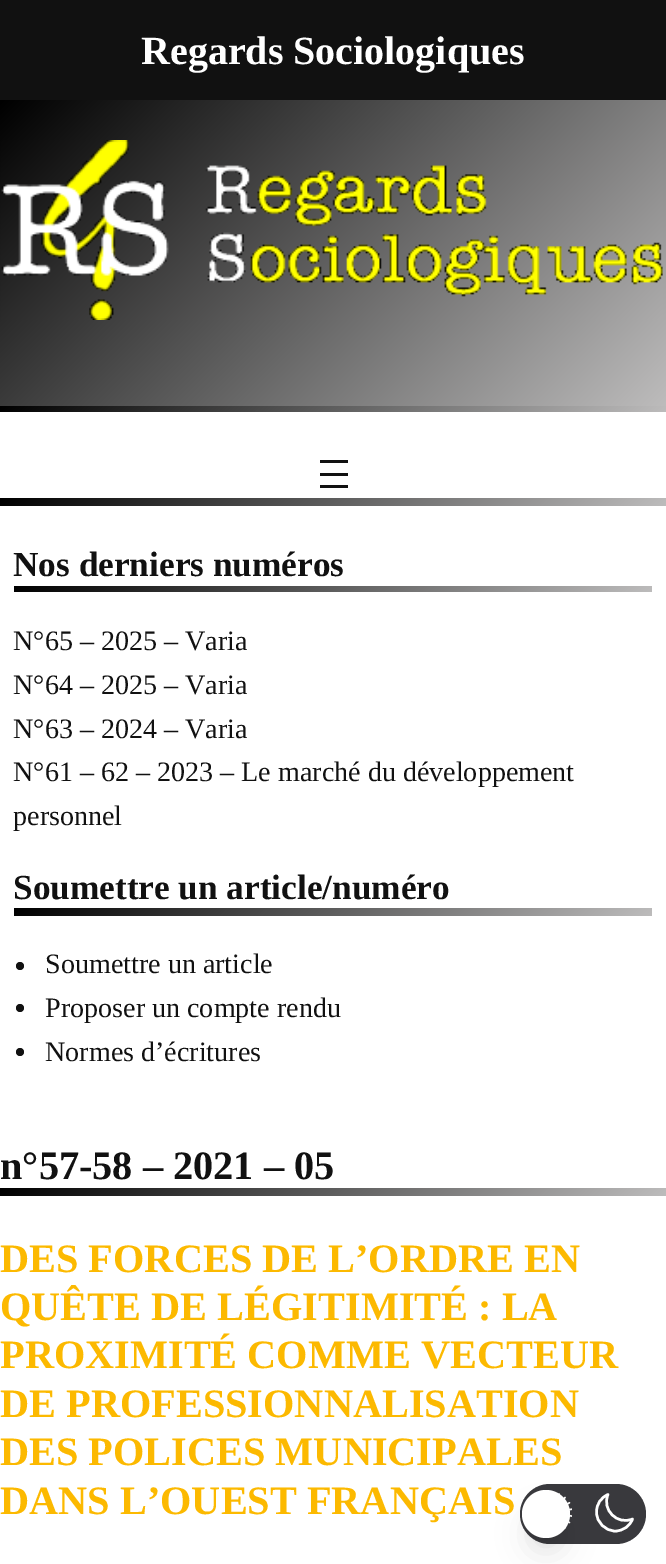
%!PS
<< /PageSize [666 1564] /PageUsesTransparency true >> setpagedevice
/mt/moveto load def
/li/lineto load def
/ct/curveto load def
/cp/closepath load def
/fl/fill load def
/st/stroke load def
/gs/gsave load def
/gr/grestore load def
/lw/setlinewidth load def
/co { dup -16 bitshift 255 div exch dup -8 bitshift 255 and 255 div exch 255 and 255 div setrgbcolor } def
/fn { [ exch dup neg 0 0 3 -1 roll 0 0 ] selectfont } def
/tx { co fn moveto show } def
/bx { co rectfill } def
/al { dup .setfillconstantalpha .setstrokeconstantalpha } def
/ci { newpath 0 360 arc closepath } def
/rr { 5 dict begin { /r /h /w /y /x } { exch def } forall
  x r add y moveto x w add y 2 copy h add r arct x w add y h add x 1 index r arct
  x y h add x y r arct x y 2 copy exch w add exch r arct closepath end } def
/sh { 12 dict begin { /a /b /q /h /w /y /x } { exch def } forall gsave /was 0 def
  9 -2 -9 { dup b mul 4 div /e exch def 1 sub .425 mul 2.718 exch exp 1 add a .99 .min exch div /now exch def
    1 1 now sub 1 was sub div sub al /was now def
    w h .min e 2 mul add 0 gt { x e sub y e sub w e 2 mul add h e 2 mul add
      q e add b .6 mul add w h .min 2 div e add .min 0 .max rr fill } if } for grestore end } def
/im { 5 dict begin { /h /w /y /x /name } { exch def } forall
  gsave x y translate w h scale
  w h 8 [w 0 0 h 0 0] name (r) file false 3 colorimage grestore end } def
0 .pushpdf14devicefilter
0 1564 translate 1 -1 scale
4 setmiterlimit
0 0 666 1564 16#FFFFFF bx
0 0 666 100 16#111111 bx
gs 0 100 mt 666 100 li 666 406 li 0 406 li cp clip newpath
<< /ShadingType 2 /ColorSpace /DeviceRGB /Coords [90 10 576 496] /Extend [true true] /Function << /FunctionType 2 /Domain [0 1] /C0 [0 0 0] /C1 [.741 .737 .737] /N 1 >> >> shfill gr
(media/1.raw) 1 140 662 180 im
gs 0 406 mt 666 406 li 666 412 li 0 412 li cp clip newpath
<< /ShadingType 2 /ColorSpace /DeviceRGB /Coords [165 241 501 577] /Extend [true true] /Function << /FunctionType 2 /Domain [0 1] /C0 [0 0 0] /C1 [.741 .737 .737] /N 1 >> >> shfill gr
320 460 28 3 16#111111 bx
320 473 28 3 16#111111 bx
320 485 28 3 16#111111 bx
gs 0 498 mt 666 498 li 666 506 li 0 506 li cp clip newpath
<< /ShadingType 2 /ColorSpace /DeviceRGB /Coords [164 334 502 671] /Extend [true true] /Function << /FunctionType 2 /Domain [0 1] /C0 [0 0 0] /C1 [.741 .737 .737] /N 1 >> >> shfill gr
gs 14 586 mt 652 586 li 652 592 li 14 592 li cp clip newpath
<< /ShadingType 2 /ColorSpace /DeviceRGB /Coords [172 428 494 750] /Extend [true true] /Function << /FunctionType 2 /Domain [0 1] /C0 [0 0 0] /C1 [.741 .737 .737] /N 1 >> >> shfill gr
gs 14 908 mt 652 908 li 652 916 li 14 916 li cp clip newpath
<< /ShadingType 2 /ColorSpace /DeviceRGB /Coords [172 751 495 1074] /Extend [true true] /Function << /FunctionType 2 /Domain [0 1] /C0 [0 0 0] /C1 [.741 .737 .737] /N 1 >> >> shfill gr
20 966 4 ci fl
20 1008 4 ci fl
20 1052 4 ci fl
gs 0 1188 mt 666 1188 li 666 1196 li 0 1196 li cp clip newpath
<< /ShadingType 2 /ColorSpace /DeviceRGB /Coords [164 1024 502 1361] /Extend [true true] /Function << /FunctionType 2 /Domain [0 1] /C0 [0 0 0] /C1 [.741 .737 .737] /N 1 >> >> shfill gr
16#39393D co
520 1484 126 60 30 rr fl
(media/2.raw) 558 1493 14 36 im
16#000000 co
530 1506 32 32 16 6 .1 sh
16#FFFFFF co
2.5 lw
1 setlinecap
1 setlinejoin
632.5 1519 mt 617.5 1525.5 601.5 1510 608 1494.5 ct 601 1497.5 596.5 1504 596.5 1512 ct 596.5 1522.5 605 1531 615.5 1531 ct 623 1531 630 1526 632.5 1519 ct cp st
16#000000 co
528 1516 36 36 18 15 .1 sh
16#FFFFFF co
546 1514 24 ci fl
(Regards Sociologiques) 141 64 /LiberationSerif-Bold 40 16#FFFFFF tx
(Nos derniers numéros) 13 576 /LiberationSerif-Bold 35.25 16#111111 tx
(N°65 – 2025 – Varia) 13 650 /LiberationSerif-Regular 28.1 16#111111 tx
(N°64 – 2025 – Varia) 13 694 /LiberationSerif-Regular 28.1 16#111111 tx
(N°63 – 2024 – Varia) 13 738 /LiberationSerif-Regular 28.1 16#111111 tx
(N°61 – 62 – 2023 – Le marché du développement) 13 781 /LiberationSerif-Regular 28.1 16#111111 tx
(personnel) 13 825 /LiberationSerif-Regular 28.1 16#111111 tx
(Soumettre un article/numéro) 13 899 /LiberationSerif-Bold 35.25 16#111111 tx
(Soumettre un article) 45 973 /LiberationSerif-Regular 28.1 16#111111 tx
(Proposer un compte rendu) 45 1017 /LiberationSerif-Regular 28.1 16#111111 tx
(Normes d’écritures) 45 1061 /LiberationSerif-Regular 28.1 16#111111 tx
(n°57-58 – 2021 – 05) 0 1179 /LiberationSerif-Bold 40.3 16#111111 tx
(DES FORCES DE L’ORDRE EN) 0 1272 /LiberationSerif-Bold 40.3 16#FCB900 tx
(QUÊTE DE LÉGITIMITÉ : LA) 0 1320 /LiberationSerif-Bold 40.3 16#FCB900 tx
(PROXIMITÉ COMME VECTEUR) 0 1368 /LiberationSerif-Bold 40.3 16#FCB900 tx
(DE PROFESSIONNALISATION) 0 1417 /LiberationSerif-Bold 40.3 16#FCB900 tx
(DES POLICES MUNICIPALES) 0 1465 /LiberationSerif-Bold 40.3 16#FCB900 tx
(DANS L’OUEST FRANÇAIS) 0 1514 /LiberationSerif-Bold 40.3 16#FCB900 tx
.poppdf14devicefilter showpage
